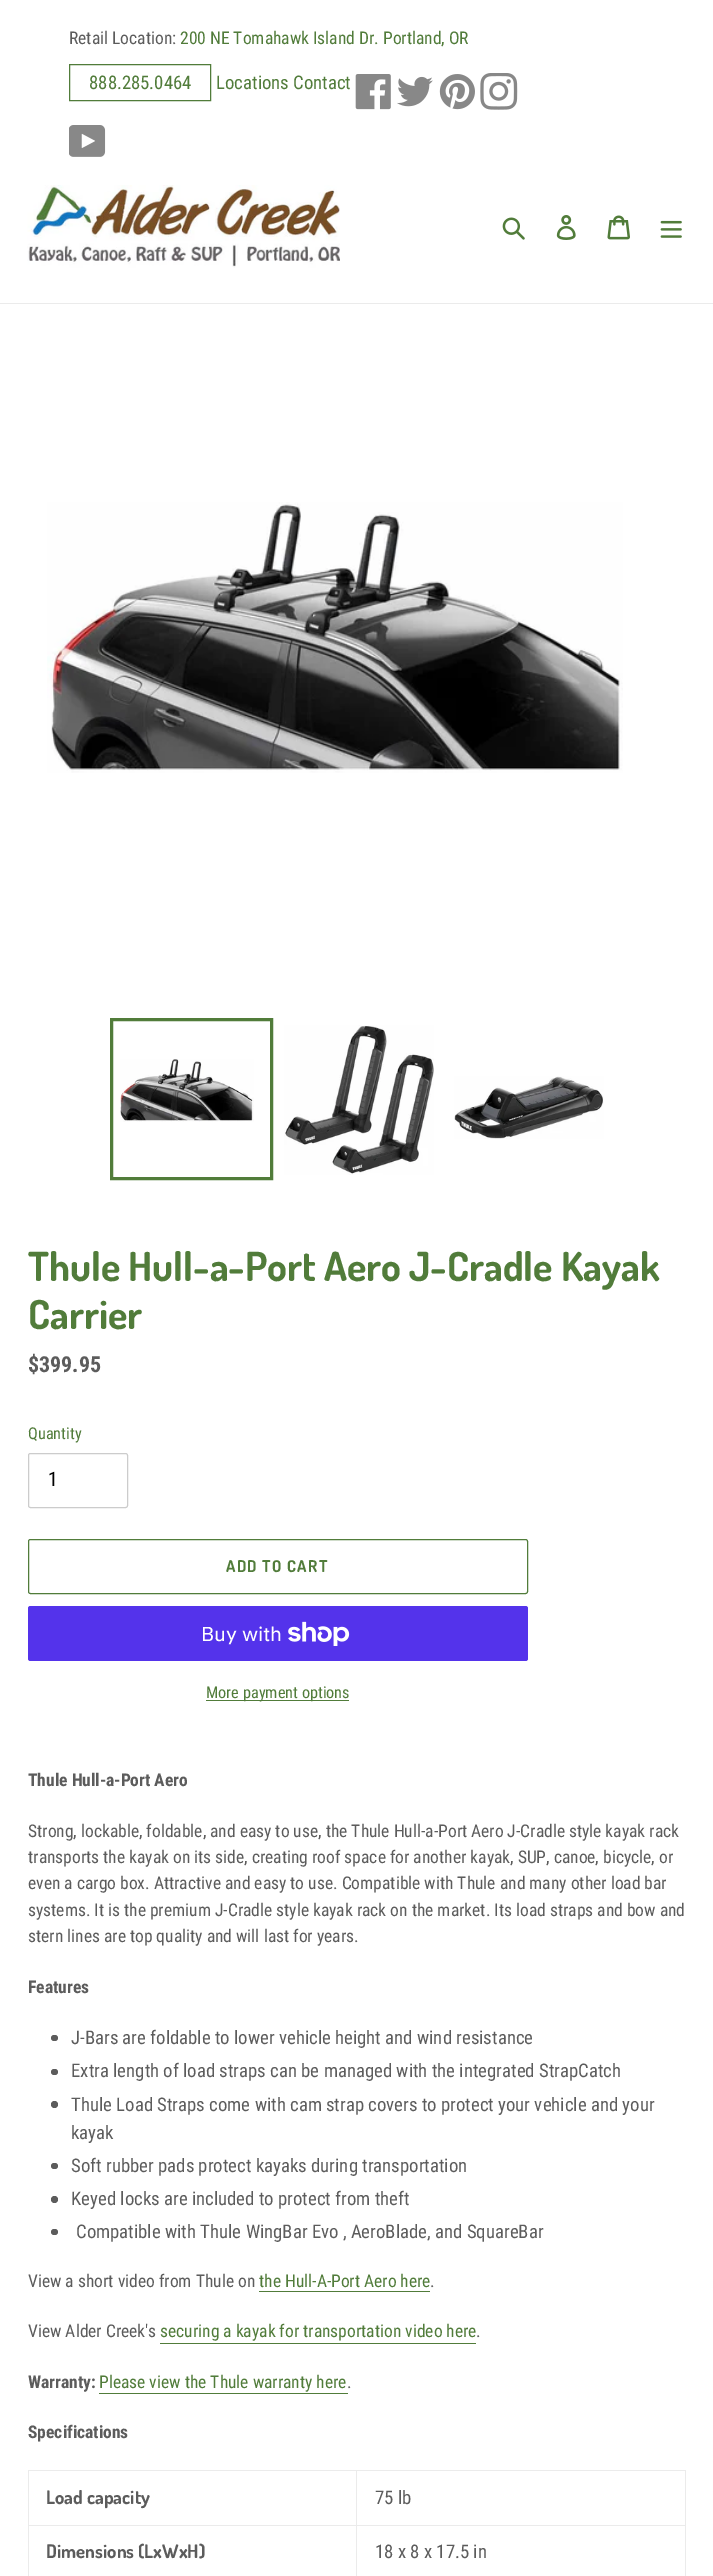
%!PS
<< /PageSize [713 2576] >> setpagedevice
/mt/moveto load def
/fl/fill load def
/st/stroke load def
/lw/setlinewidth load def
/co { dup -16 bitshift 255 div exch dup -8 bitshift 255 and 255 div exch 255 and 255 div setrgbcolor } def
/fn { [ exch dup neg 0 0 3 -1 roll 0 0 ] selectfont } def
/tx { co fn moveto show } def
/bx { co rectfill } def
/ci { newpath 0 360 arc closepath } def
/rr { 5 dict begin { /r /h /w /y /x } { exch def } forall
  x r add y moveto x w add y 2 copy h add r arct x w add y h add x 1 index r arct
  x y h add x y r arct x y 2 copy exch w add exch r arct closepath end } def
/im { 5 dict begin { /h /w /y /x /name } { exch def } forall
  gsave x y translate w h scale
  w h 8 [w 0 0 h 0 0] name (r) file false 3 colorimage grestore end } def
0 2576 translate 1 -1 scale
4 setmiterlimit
0 0 713 2576 16#FFFFFF bx
16#517C3A co
69.5 64.5 141 36 rectstroke
(media/1.raw) 355 74 36 36 im
(media/2.raw) 397 76 36 31 im
(media/3.raw) 439 74 36 36 im
(media/4.raw) 480 73 38 37 im
(media/5.raw) 69 125 37 32 im
0 303 713 1 16#EBEBEB bx
(media/6.raw) 27 185 313 83 im
(media/7.raw) 502 217 23 23 im
(media/8.raw) 556 215 20 25 im
(media/9.raw) 607 215 23 25 im
(media/10.raw) 660 220 22 18 im
(media/11.raw) 47 502 576 271 im
16#517C3A co
3 lw
111.5 1019.5 160 159 rectstroke
(media/12.raw) 120 1059 134 63 im
(media/13.raw) 284 1025 150 150 im
(media/14.raw) 454 1076 150 63 im
16#CCCCCC co
1 lw
28.5 1453.5 99 54 2 rr st
16#517C3A co
28.5 1539.5 499 54 2 rr st
16#5433EB co
28 1606 500 55 2.5 rr fl
(media/15.raw) 288 1621 62 25 im
206 1700 143 1 16#517C3A bx
16#5C5C5C co
51 2035 7 6 3 rr fl
51 2069 7 6 3 rr fl
54.5 2104.5 3.5 ci fl
51 2163 7 6 3 rr fl
54.5 2199.5 3.5 ci fl
51 2229 7 6 3 rr fl
259 2291 171 1 16#517C3A bx
160 2343 316 1 16#517C3A bx
99 2393 249 1 16#517C3A bx
356 2470 330 1 16#EBEBEB bx
356 2525 330 1 16#EBEBEB bx
356 2525 1 51 16#EBEBEB bx
28 2525 330 1 16#EBEBEB bx
356 2470 1 56 16#EBEBEB bx
28 2470 330 1 16#EBEBEB bx
28 2525 1 51 16#EBEBEB bx
28 2470 1 56 16#EBEBEB bx
685 2525 1 51 16#EBEBEB bx
685 2470 1 56 16#EBEBEB bx
(Retail Location:) 69 44 /RobotoCondensed-Regular 17.5 16#5C5C5C tx
(200 NE Tomahawk Island Dr. Portland, OR) 180 44 /RobotoCondensed-Regular 17.5 16#517C3A tx
(888.285.0464) 89 89 /RobotoCondensed-Regular 18.75 16#517C3A tx
(Locations Contact) 216 89 /RobotoCondensed-Regular 18.75 16#517C3A tx
(Thule Hull-a-Port Aero J-Cradle Kayak) 28 1281 /Dosis-Bold 40 16#517C3A tx
(Carrier) 28 1329 /Dosis-Bold 40 16#517C3A tx
($399.95) 28 1372 /RobotoCondensed-Bold 22 16#5C5C5C tx
(Quantity) 28 1439 /RobotoCondensed-Regular 16.25 16#517C3A tx
(1) 48 1486 /RobotoCondensed-Regular 20 16#000000 tx
/Dosis-Bold 16.25 fn
16#517C3A co
226 1572 mt 1.25 0 (ADD TO CART) ashow
(Buy with) 201 1641 /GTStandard-Regular 20 16#FFFFFF tx
(More payment options) 206 1698 /RobotoCondensed-Regular 16.25 16#517C3A tx
(Thule Hull-a-Port Aero) 28 1786 /RobotoCondensed-Bold 17.5 16#5C5C5C tx
(Strong, lockable, foldable, and easy to use, the Thule Hull-a-Port Aero J-Cradle style kayak rack) 28 1837 /RobotoCondensed-Regular 17.5 16#5C5C5C tx
(transports the kayak on its side, creating roof space for another kayak, SUP, canoe, bicycle, or) 28 1863 /RobotoCondensed-Regular 17.5 16#5C5C5C tx
(even a cargo box. Attractive and easy to use. Compatible with Thule and many other load bar) 28 1889 /RobotoCondensed-Regular 17.5 16#5C5C5C tx
(systems. It is the premium J-Cradle style kayak rack on the market. Its load straps and bow and) 28 1916 /RobotoCondensed-Regular 17.5 16#5C5C5C tx
(stern lines are top quality and will last for years.) 28 1942 /RobotoCondensed-Regular 17.5 16#5C5C5C tx
(Features) 28 1993 /RobotoCondensed-Bold 17.5 16#5C5C5C tx
(J-Bars are foldable to lower vehicle height and wind resistance) 71 2044 /RobotoCondensed-Regular 18.75 16#5C5C5C tx
(Extra length of load straps can be managed with the integrated StrapCatch) 71 2077 /RobotoCondensed-Regular 18.75 16#5C5C5C tx
(Thule Load Straps come with cam strap covers to protect your vehicle and your) 71 2111 /RobotoCondensed-Regular 18.75 16#5C5C5C tx
(kayak) 71 2139 /RobotoCondensed-Regular 18.75 16#5C5C5C tx
(Soft rubber pads protect kayaks during transportation) 71 2172 /RobotoCondensed-Regular 18.75 16#5C5C5C tx
(Keyed locks are included to protect from theft) 71 2205 /RobotoCondensed-Regular 18.75 16#5C5C5C tx
(Compatible with Thule WingBar Evo , AeroBlade, and SquareBar) 76 2238 /RobotoCondensed-Regular 18.75 16#5C5C5C tx
(View a short video from Thule on) 28 2287 /RobotoCondensed-Regular 17.5 16#5C5C5C tx
(the Hull-A-Port Aero here) 259 2287 /RobotoCondensed-Regular 17.5 16#517C3A tx
(.) 430 2287 /RobotoCondensed-Regular 17.5 16#5C5C5C tx
(View Alder Creek's) 28 2337 /RobotoCondensed-Regular 17.5 16#5C5C5C tx
(securing a kayak for transportation video here) 160 2337 /RobotoCondensed-Regular 17.5 16#517C3A tx
(.) 476 2337 /RobotoCondensed-Regular 17.5 16#5C5C5C tx
(Warranty:) 28 2388 /RobotoCondensed-Bold 17.5 16#5C5C5C tx
(Please view the Thule warranty here) 99 2388 /RobotoCondensed-Regular 17.5 16#517C3A tx
(.) 347 2388 /RobotoCondensed-Regular 17.5 16#5C5C5C tx
(Specifications) 28 2438 /RobotoCondensed-Bold 17.5 16#5C5C5C tx
(Load capacity) 46 2504 /Dosis-Bold 18.75 16#5C5C5C tx
(75 lb) 375 2504 /RobotoCondensed-Regular 18.75 16#5C5C5C tx
(Dimensions \(LxWxH\)) 46 2558 /Dosis-Bold 18.75 16#5C5C5C tx
(18 x 8 x 17.5 in) 375 2558 /RobotoCondensed-Regular 18.75 16#5C5C5C tx
showpage
